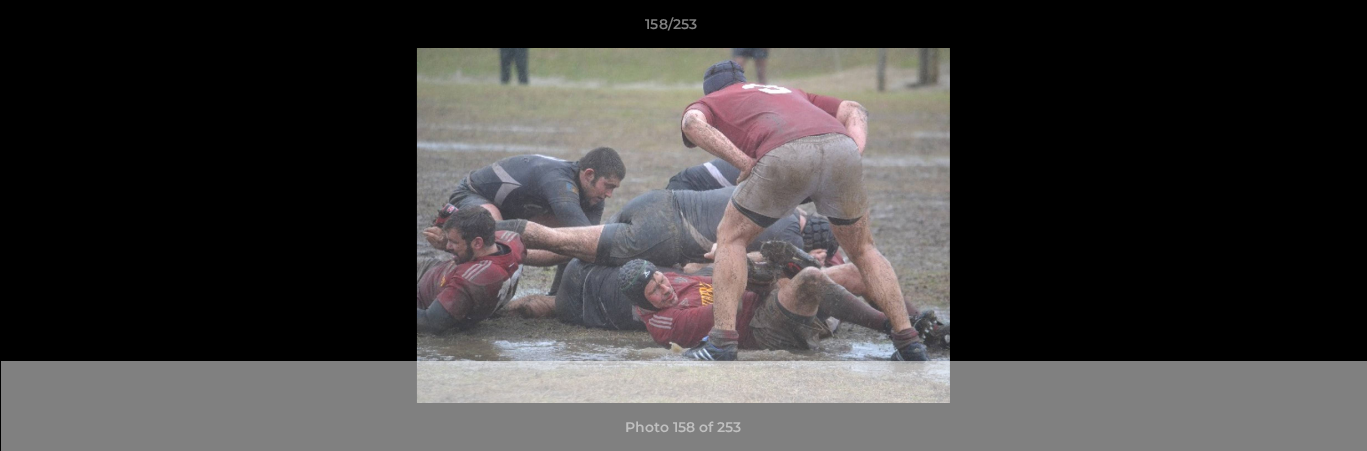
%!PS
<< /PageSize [1367 451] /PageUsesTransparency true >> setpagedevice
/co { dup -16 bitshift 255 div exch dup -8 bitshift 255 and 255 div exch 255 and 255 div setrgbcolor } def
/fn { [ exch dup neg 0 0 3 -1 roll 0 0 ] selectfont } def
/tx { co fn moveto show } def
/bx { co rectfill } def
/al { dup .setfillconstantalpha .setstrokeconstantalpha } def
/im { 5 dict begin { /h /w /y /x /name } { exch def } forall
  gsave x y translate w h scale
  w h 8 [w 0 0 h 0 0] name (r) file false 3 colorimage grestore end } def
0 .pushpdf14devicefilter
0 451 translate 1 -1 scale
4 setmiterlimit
0 0 1367 451 16#000000 bx
(media/1.raw) 416 48 534 355 im
(158/253) 645 29 /Montserrat-SemiBold 14 16#808080 tx
(Photo 158 of 253) 625 432 /Montserrat-SemiBold 14 16#808080 tx
0.5 al
1 361 1366 90 16#FFFFFF bx
.poppdf14devicefilter showpage
